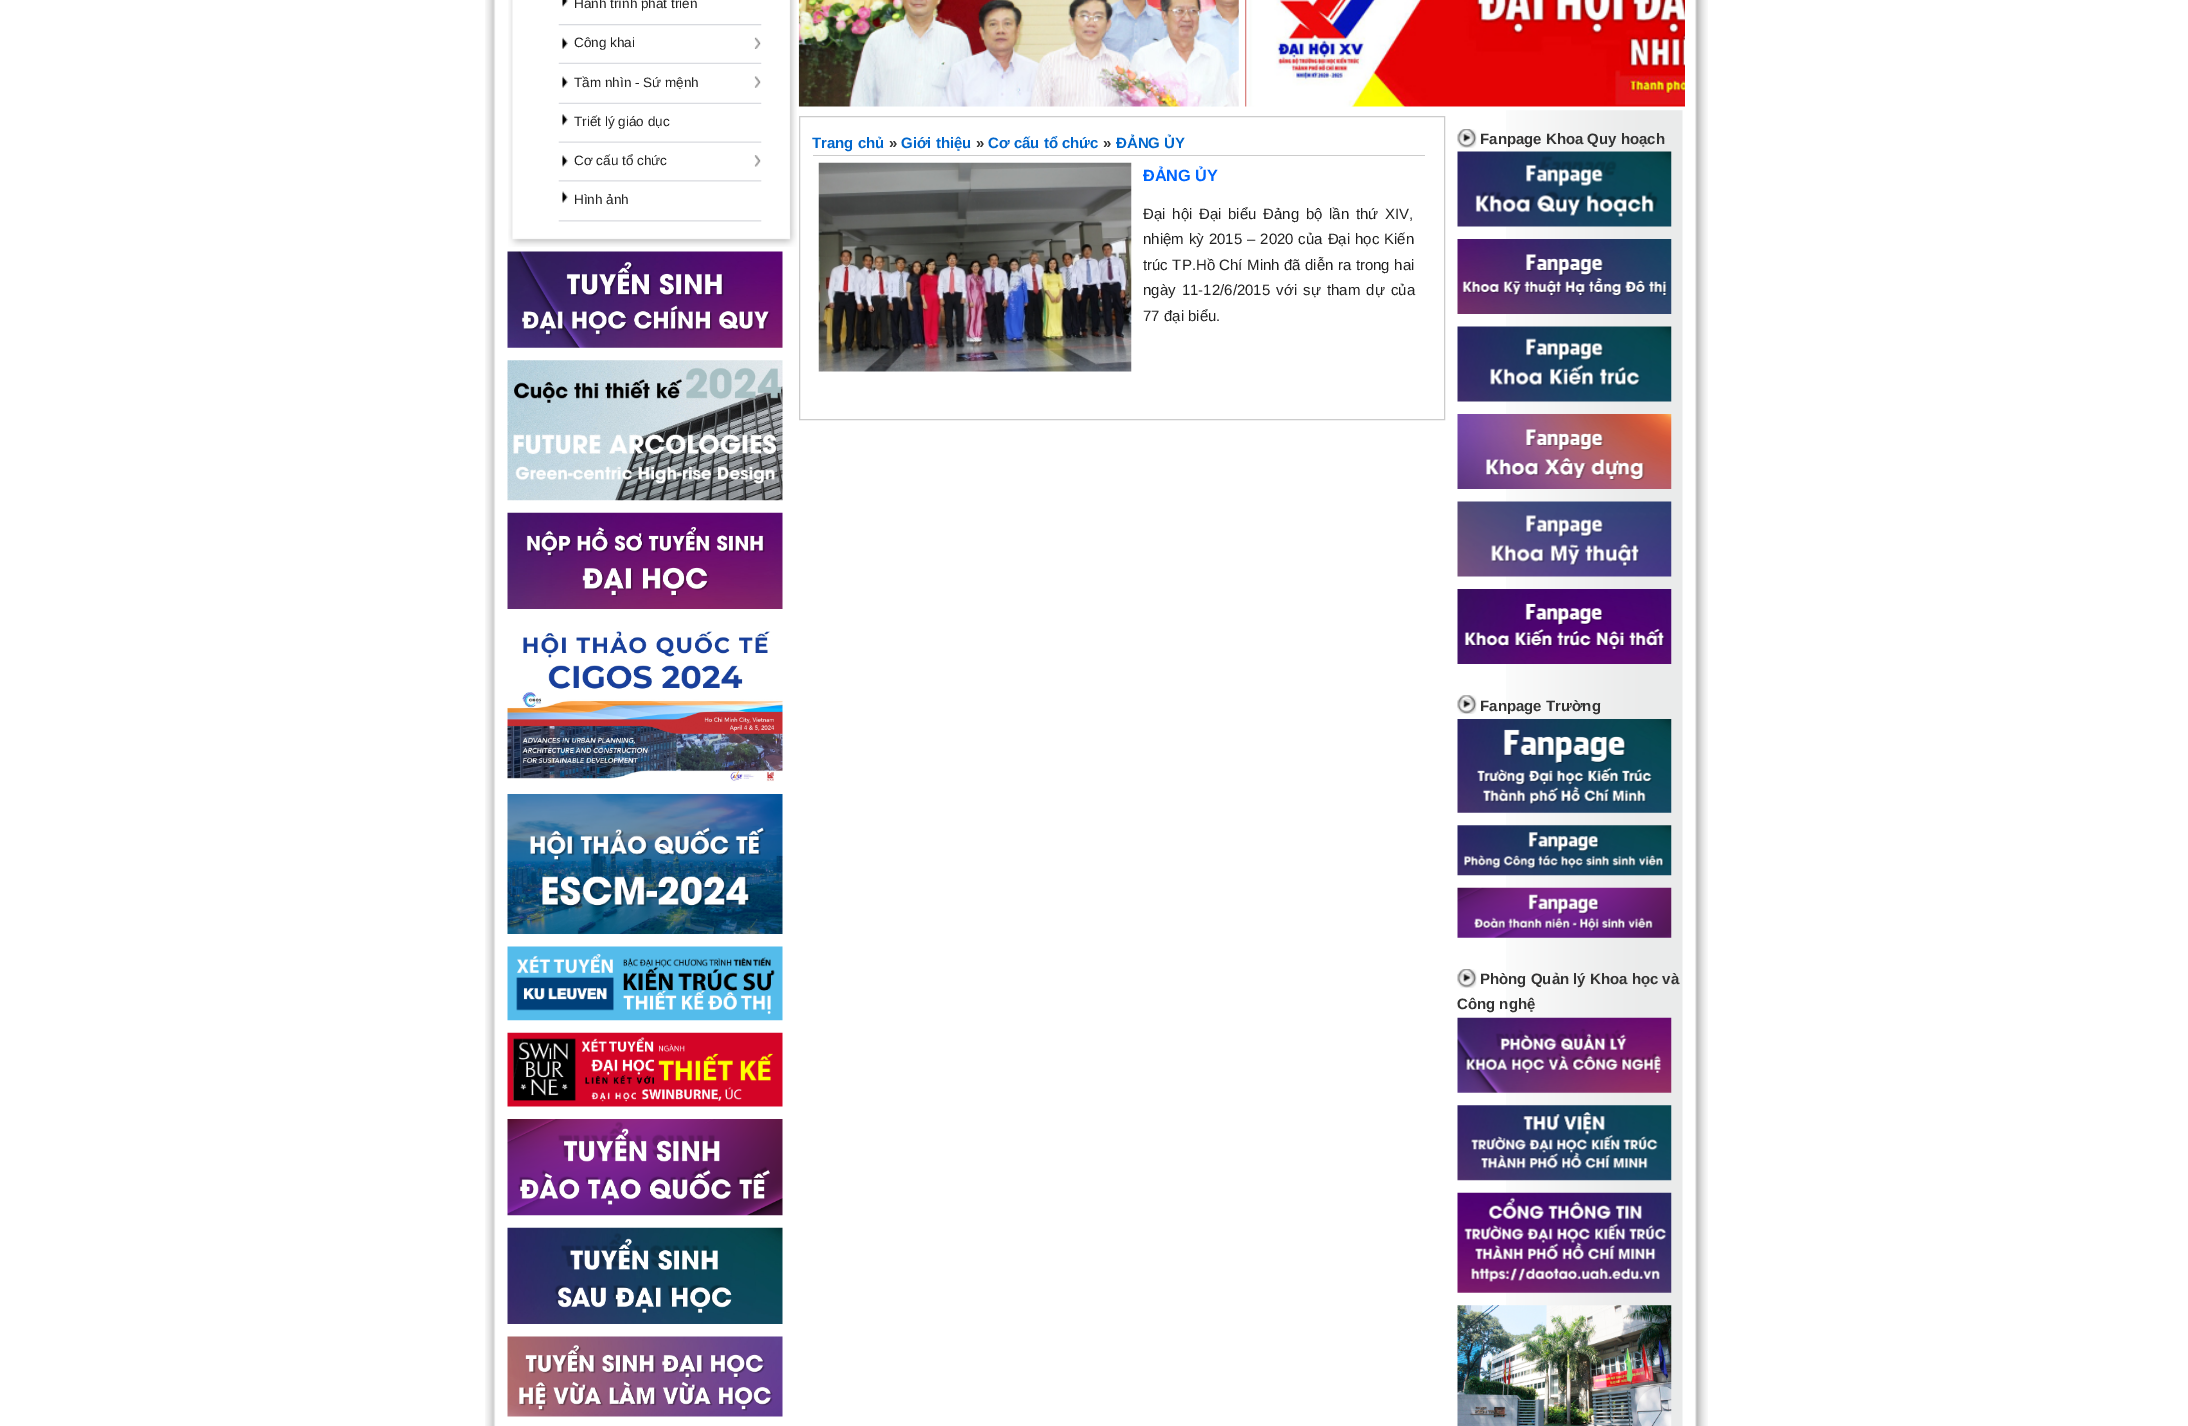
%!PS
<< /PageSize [2188 1426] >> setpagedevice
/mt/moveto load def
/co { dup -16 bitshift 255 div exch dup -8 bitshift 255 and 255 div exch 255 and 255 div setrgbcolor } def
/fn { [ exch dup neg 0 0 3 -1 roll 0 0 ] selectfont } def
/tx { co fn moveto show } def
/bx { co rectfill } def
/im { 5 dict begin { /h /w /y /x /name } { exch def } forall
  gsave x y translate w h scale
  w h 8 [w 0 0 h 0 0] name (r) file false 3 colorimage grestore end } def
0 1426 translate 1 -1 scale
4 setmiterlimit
0 0 2188 1426 16#FFFFFF bx
(media/1.raw) 485 0 1223 1426 im
(media/2.raw) 508 0 289 229 im
(media/3.raw) 558 24 204 2 im
(media/4.raw) 562 0 6 7 im
(media/5.raw) 558 62 204 2 im
(media/6.raw) 562 37 199 12 im
(media/5.raw) 558 102 204 2 im
(media/7.raw) 562 76 199 12 im
(media/8.raw) 558 141 204 2 im
(media/9.raw) 562 114 6 12 im
(media/10.raw) 558 180 204 2 im
(media/11.raw) 562 155 199 12 im
(media/10.raw) 558 220 204 2 im
(media/12.raw) 562 191 6 12 im
(media/13.raw) 508 229 289 18 im
(media/14.raw) 507 251 276 97 im
(media/15.raw) 507 360 276 141 im
(media/16.raw) 507 512 276 97 im
(media/17.raw) 507 631 276 151 im
(media/18.raw) 507 794 276 140 im
(media/19.raw) 507 946 276 75 im
(media/20.raw) 507 1032 276 75 im
(media/21.raw) 507 1119 276 97 im
(media/22.raw) 507 1227 276 97 im
(media/23.raw) 507 1336 276 81 im
(media/24.raw) 798 0 441 107 im
(media/25.raw) 1245 0 440 107 im
16#CCCCCC co
799.5 116.5 645 303 rectstroke
813 155 612 1 16#CCCCCC bx
(media/26.raw) 818 162 314 210 im
(media/27.raw) 1506 110 177 1316 im
(media/28.raw) 1457 129 20 19 im
(media/29.raw) 1457 151 215 76 im
(media/30.raw) 1457 239 215 75 im
(media/31.raw) 1457 326 215 76 im
(media/32.raw) 1457 414 215 75 im
(media/33.raw) 1457 501 215 76 im
(media/34.raw) 1457 589 215 75 im
(media/35.raw) 1457 695 20 19 im
(media/36.raw) 1457 719 215 94 im
(media/37.raw) 1457 825 215 51 im
(media/38.raw) 1457 887 215 51 im
(media/28.raw) 1457 969 20 19 im
(media/39.raw) 1457 1017 215 76 im
(media/40.raw) 1457 1105 215 76 im
(media/41.raw) 1457 1192 215 101 im
(media/42.raw) 1457 1305 215 121 im
(Hành trình phát triển) 574 8 /LiberationSans-Regular 13.5 16#222222 tx
(Công khai) 574 47 /LiberationSans-Regular 13.5 16#222222 tx
(Tầm nhìn - Sứ mệnh) 574 87 /LiberationSans-Regular 13.5 16#222222 tx
(Triết lý giáo dục) 574 126 /LiberationSans-Regular 13.5 16#222222 tx
(Cơ cấu tổ chức) 574 165 /LiberationSans-Regular 13.5 16#222222 tx
(Hình ảnh) 574 204 /LiberationSans-Regular 13.5 16#222222 tx
(Trang chủ) 812 148 /LiberationSans-Bold 15 16#0066CC tx
(») 889 148 /LiberationSans-Bold 15 16#333333 tx
(Giới thiệu) 901 148 /LiberationSans-Bold 15 16#0066CC tx
(») 976 148 /LiberationSans-Bold 15 16#333333 tx
(Cơ cấu tổ chức) 988 148 /LiberationSans-Bold 15 16#0066CC tx
(») 1103 148 /LiberationSans-Bold 15 16#333333 tx
(ĐẢNG ỦY) 1116 148 /LiberationSans-Bold 15 16#0066CC tx
(ĐẢNG ỦY) 1143 181 /LiberationSans-Bold 16.25 16#0066FF tx
/LiberationSans-Regular 15 fn
16#222222 co
1143 219 mt 2.5 0 32 (Đại hội Đại biểu Đảng bộ lần thứ XIV,) widthshow
1143 244 mt .75 0 32 (nhiệm kỳ 2015 – 2020 của Đại học Kiến) widthshow
1143 270 mt .25 0 32 (trúc TP.Hồ Chí Minh đã diễn ra trong hai) widthshow
1143 295 mt 2 0 32 (ngày 11-12/6/2015 với sự tham dự của) widthshow
(77 đại biểu.) 1143 321 /LiberationSans-Regular 15 16#222222 tx
(Fanpage Khoa Quy hoạch) 1480 144 /LiberationSans-Bold 15 16#333333 tx
(Fanpage Trường) 1480 711 /LiberationSans-Bold 15 16#333333 tx
(Phòng Quản lý Khoa học và) 1480 984 /LiberationSans-Bold 15 16#333333 tx
(Công nghệ) 1457 1009 /LiberationSans-Bold 15 16#333333 tx
showpage
